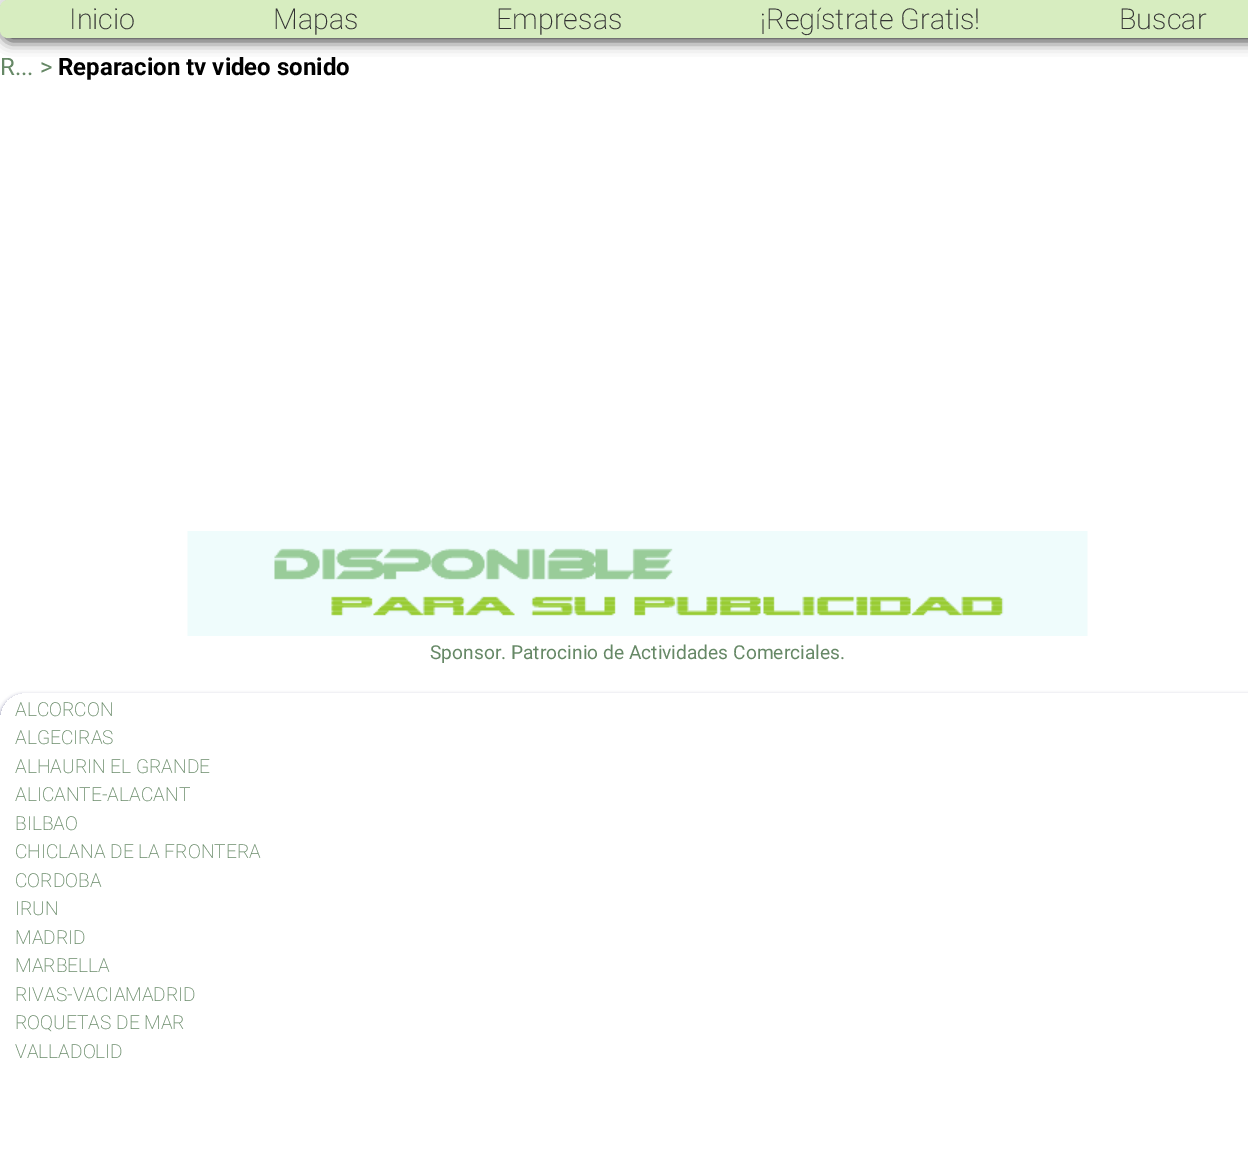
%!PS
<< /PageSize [1248 1158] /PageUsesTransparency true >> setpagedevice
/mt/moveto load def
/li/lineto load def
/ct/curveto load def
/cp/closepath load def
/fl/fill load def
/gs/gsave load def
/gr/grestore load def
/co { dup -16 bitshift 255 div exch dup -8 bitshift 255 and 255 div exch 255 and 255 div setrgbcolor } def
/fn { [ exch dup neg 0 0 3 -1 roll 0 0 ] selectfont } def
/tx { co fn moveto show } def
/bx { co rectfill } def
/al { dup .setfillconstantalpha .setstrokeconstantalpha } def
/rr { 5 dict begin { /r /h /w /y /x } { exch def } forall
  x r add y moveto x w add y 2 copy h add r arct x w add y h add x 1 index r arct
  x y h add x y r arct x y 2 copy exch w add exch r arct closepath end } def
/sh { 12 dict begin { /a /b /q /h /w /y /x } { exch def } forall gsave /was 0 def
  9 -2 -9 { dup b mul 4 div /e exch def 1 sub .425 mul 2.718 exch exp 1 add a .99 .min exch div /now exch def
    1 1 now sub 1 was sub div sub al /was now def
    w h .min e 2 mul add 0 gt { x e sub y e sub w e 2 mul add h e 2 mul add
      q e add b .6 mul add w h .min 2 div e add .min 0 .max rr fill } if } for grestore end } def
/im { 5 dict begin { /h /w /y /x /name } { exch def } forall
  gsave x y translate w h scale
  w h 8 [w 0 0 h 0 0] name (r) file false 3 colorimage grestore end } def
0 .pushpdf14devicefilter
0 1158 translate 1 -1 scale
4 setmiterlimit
0 0 1248 1158 16#FFFFFF bx
16#333333 co
3 3 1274 38 8 7 1 sh
16#D7EDC0 co
0 0 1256 38 8 rr fl
(media/1.raw) 187 531 901 105 im
gs
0 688 mt 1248 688 li 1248 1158 li 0 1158 li cp 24 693 mt 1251 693 li 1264.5 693 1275 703.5 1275 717 ct 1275 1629 li 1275 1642.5 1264.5 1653 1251 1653 ct 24 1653 li 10.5 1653 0 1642.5 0 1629 ct 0 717 li 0 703.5 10.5 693 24 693 ct cp eoclip newpath
16#8888AA co
0 695 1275 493 24 2 1 sh
gr
(Inicio) 69 29 /Roboto-ExtraLight 28.75 16#333333 tx
(Mapas) 273 29 /Roboto-ExtraLight 28.75 16#333333 tx
(Empresas) 496 29 /Roboto-ExtraLight 28.75 16#333333 tx
(¡Regístrate Gratis!) 760 29 /Roboto-ExtraLight 28.75 16#333333 tx
(Buscar) 1119 29 /Roboto-ExtraLight 28.75 16#333333 tx
(R... >) 0 75 /Roboto-Regular 24 16#668866 tx
(Reparacion tv video sonido) 58 75 /Roboto-Bold 24 16#000000 tx
(Sponsor. Patrocinio de Actividades Comerciales.) 430 659 /Roboto-Regular 19.2 16#668866 tx
(ALCORCON) 15 716 /Roboto-ExtraLight 19.2 16#668866 tx
(ALGECIRAS) 15 744 /Roboto-ExtraLight 19.2 16#668866 tx
(ALHAURIN EL GRANDE) 15 773 /Roboto-ExtraLight 19.2 16#668866 tx
(ALICANTE-ALACANT) 15 801 /Roboto-ExtraLight 19.2 16#668866 tx
(BILBAO) 15 830 /Roboto-ExtraLight 19.2 16#668866 tx
(CHICLANA DE LA FRONTERA) 15 858 /Roboto-ExtraLight 19.2 16#668866 tx
(CORDOBA) 15 887 /Roboto-ExtraLight 19.2 16#668866 tx
(IRUN) 15 915 /Roboto-ExtraLight 19.2 16#668866 tx
(MADRID) 15 944 /Roboto-ExtraLight 19.2 16#668866 tx
(MARBELLA) 15 972 /Roboto-ExtraLight 19.2 16#668866 tx
(RIVAS-VACIAMADRID) 15 1001 /Roboto-ExtraLight 19.2 16#668866 tx
(ROQUETAS DE MAR) 15 1029 /Roboto-ExtraLight 19.2 16#668866 tx
(VALLADOLID) 15 1058 /Roboto-ExtraLight 19.2 16#668866 tx
.poppdf14devicefilter showpage
